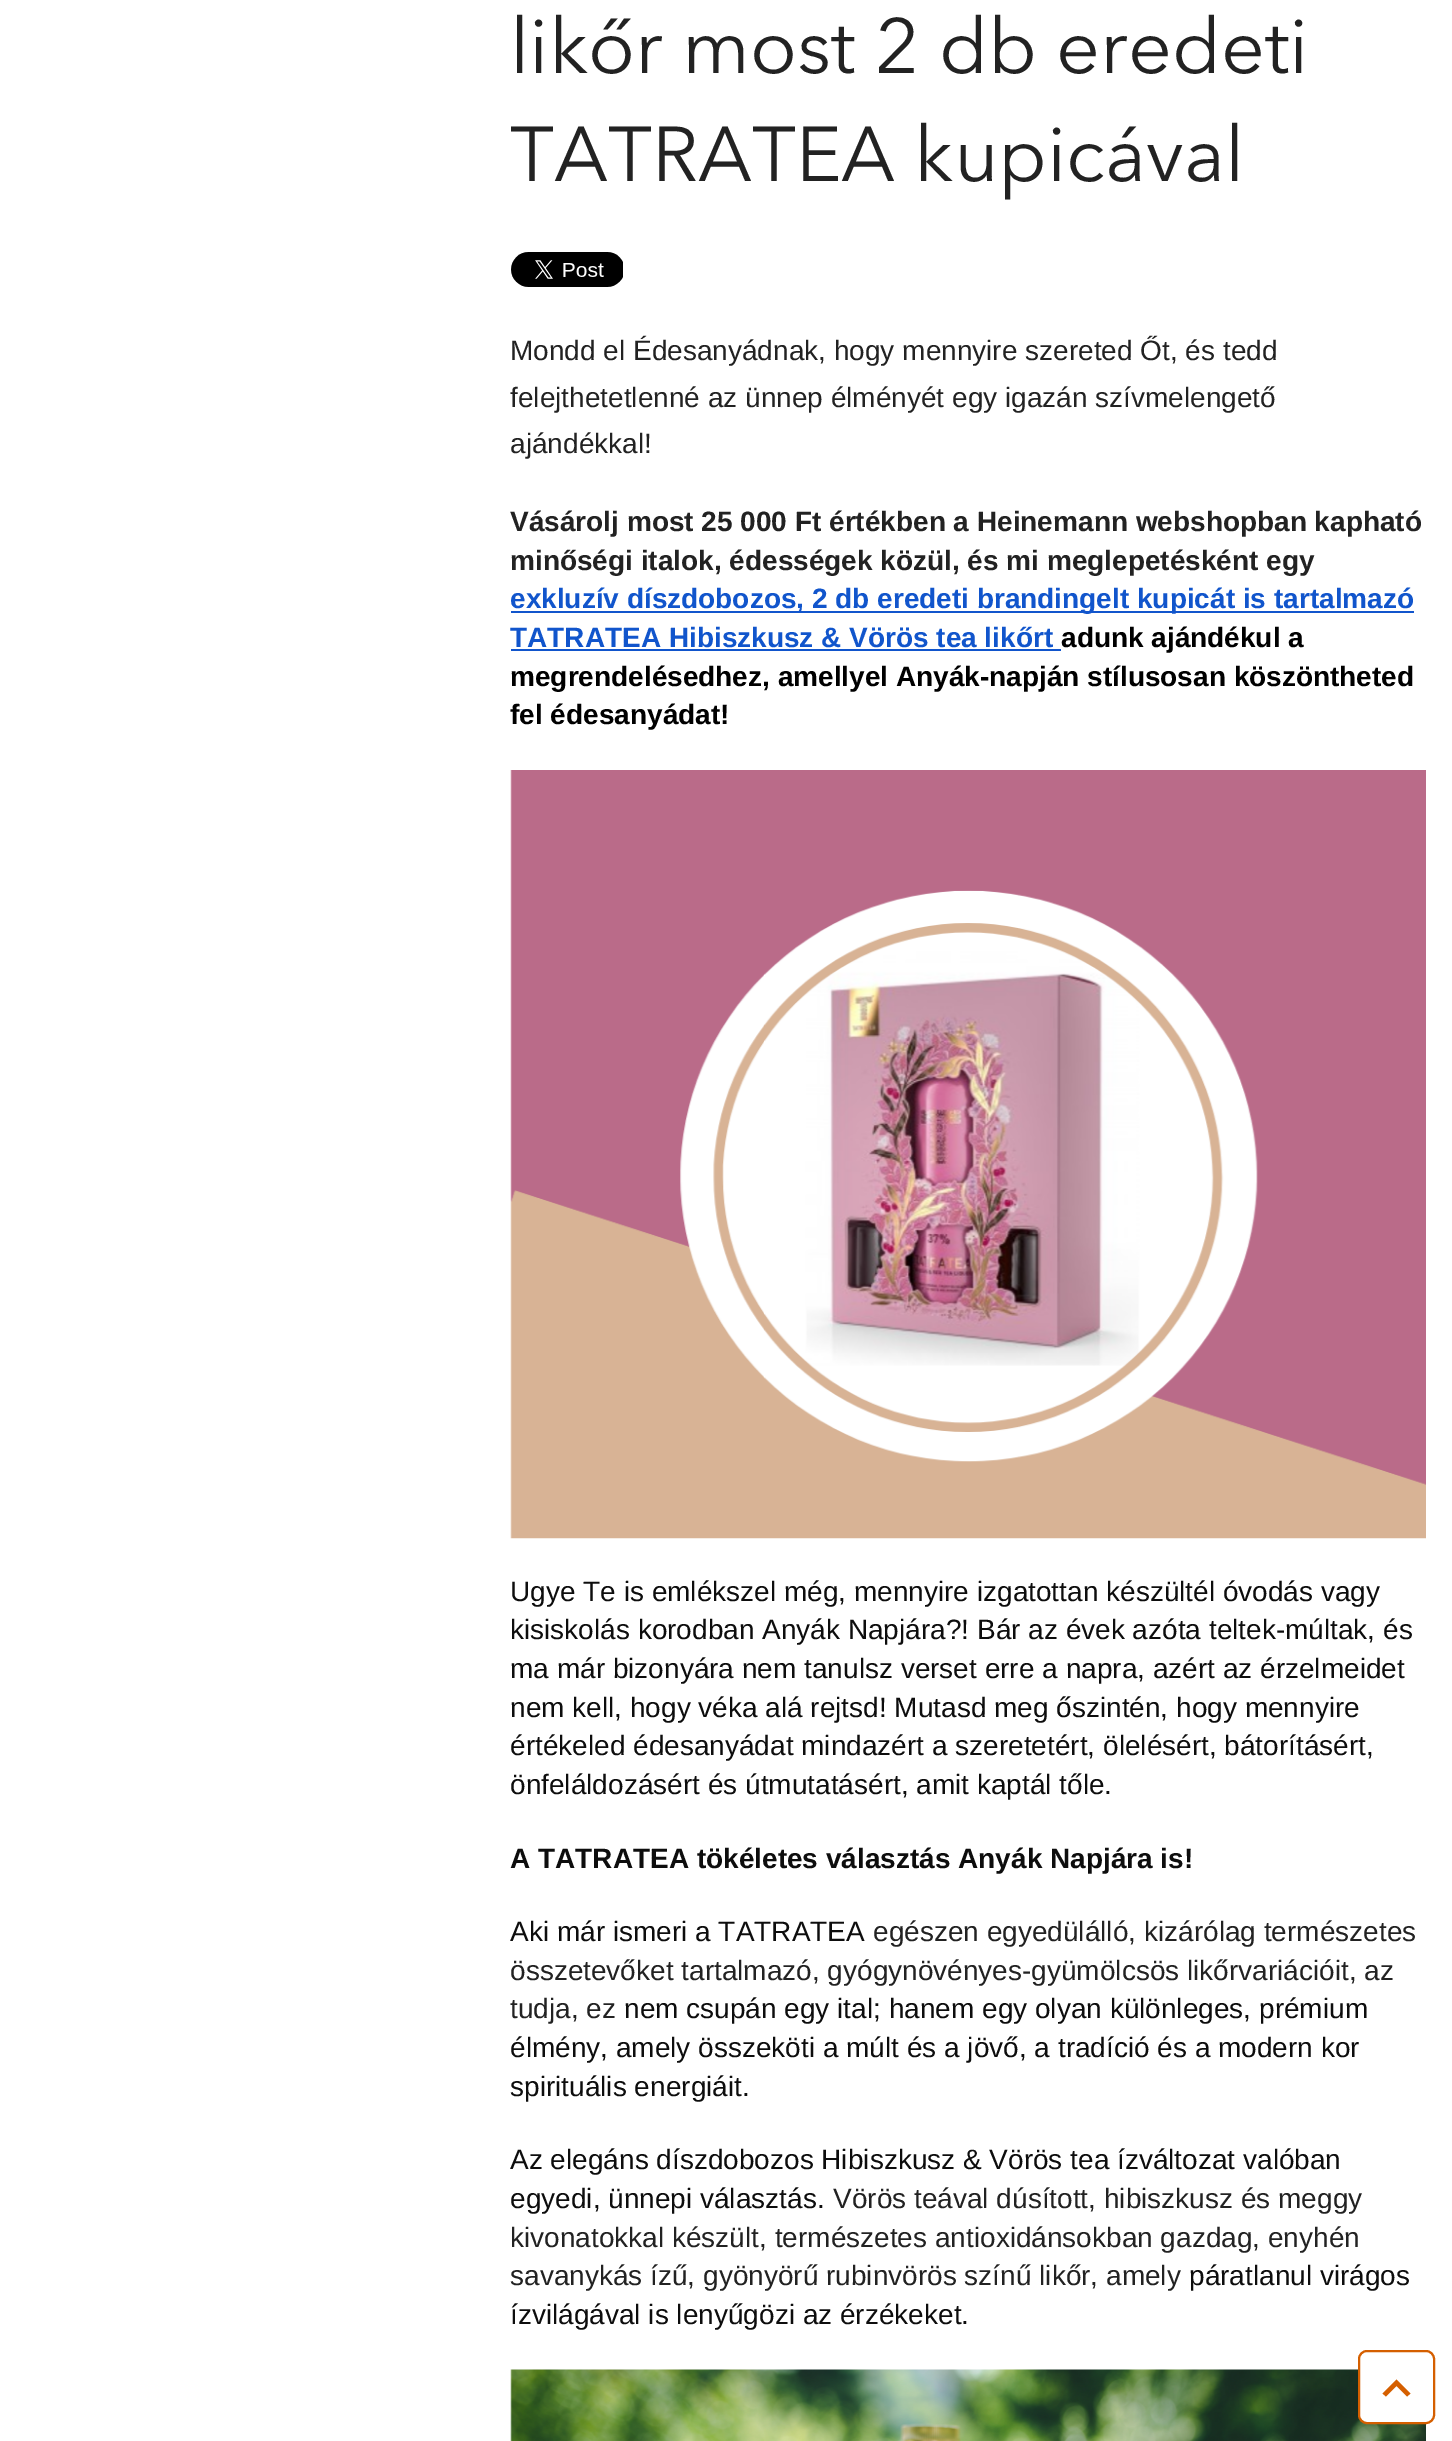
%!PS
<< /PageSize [1452 2441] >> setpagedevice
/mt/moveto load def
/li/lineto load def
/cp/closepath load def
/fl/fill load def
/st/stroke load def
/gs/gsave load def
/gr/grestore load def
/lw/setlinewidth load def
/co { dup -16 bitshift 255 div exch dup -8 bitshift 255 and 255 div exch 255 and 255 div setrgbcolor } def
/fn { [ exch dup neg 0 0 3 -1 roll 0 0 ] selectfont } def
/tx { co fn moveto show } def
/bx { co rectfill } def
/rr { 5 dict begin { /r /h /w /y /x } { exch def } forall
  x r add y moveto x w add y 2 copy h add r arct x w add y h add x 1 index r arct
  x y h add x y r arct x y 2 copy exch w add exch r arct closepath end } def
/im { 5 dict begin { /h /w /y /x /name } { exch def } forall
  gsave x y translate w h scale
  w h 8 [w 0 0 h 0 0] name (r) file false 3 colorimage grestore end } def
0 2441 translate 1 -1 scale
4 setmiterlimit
0 0 1452 2441 16#FFFFFF bx
(media/1.raw) 511 252 112 35 im
511 611 903 2 16#1155CC bx
511 649 550 2 16#1155CC bx
(media/2.raw) 510 770 916 769 im
(media/3.raw) 510 2369 916 72 im
16#FFFFFF co
1359 2351 75 72 8 rr gs fl gr
16#D55F00 co
2 lw
st
1396.5 2379.5 mt 1410.5 2393.5 li 1407 2396.5 li 1396.5 2386 li 1386 2396.5 li 1382.5 2393.5 li cp fl
(likőr most 2 db eredeti) 510 73 /AvenirNext-Regular 77 16#222222 tx
(TATRATEA kupicával) 510 181 /AvenirNext-Regular 77 16#222222 tx
(Mondd el Édesanyádnak, hogy mennyire szereted Őt, és tedd) 510 360 /LiberationSans-Regular 28 16#222222 tx
(felejthetetlenné az ünnep élményét egy igazán szívmelengető) 510 407 /LiberationSans-Regular 28 16#222222 tx
(ajándékkal!) 510 453 /LiberationSans-Regular 28 16#222222 tx
(Vásárolj most 25 000 Ft értékben a Heinemann webshopban kapható) 510 531 /LiberationSans-Bold 28 16#222222 tx
(minőségi italok, édességek közül, és mi meglepetésként egy) 510 570 /LiberationSans-Bold 28 16#222222 tx
(exkluzív díszdobozos, 2 db eredeti brandingelt kupicát is tartalmazó) 510 608 /LiberationSans-Bold 28 16#1155CC tx
(TATRATEA Hibiszkusz & Vörös tea likőrt) 510 647 /LiberationSans-Bold 28 16#1155CC tx
(adunk ajándékul a) 1061 647 /LiberationSans-Bold 28 16#000000 tx
(megrendelésedhez, amellyel Anyák-napján stílusosan köszöntheted) 510 686 /LiberationSans-Bold 28 16#000000 tx
(fel édesanyádat!) 510 724 /LiberationSans-Bold 28 16#000000 tx
(Ugye Te is emlékszel még, mennyire izgatottan készültél óvodás vagy) 510 1601 /LiberationSans-Regular 28 16#0D0D0D tx
(kisiskolás korodban Anyák Napjára?! Bár az évek azóta teltek-múltak, és) 510 1639 /LiberationSans-Regular 28 16#0D0D0D tx
(ma már bizonyára nem tanulsz verset erre a napra, azért az érzelmeidet) 510 1678 /LiberationSans-Regular 28 16#0D0D0D tx
(nem kell, hogy véka alá rejtsd! Mutasd meg őszintén, hogy mennyire) 510 1717 /LiberationSans-Regular 28 16#0D0D0D tx
(értékeled édesanyádat mindazért a szeretetért, ölelésért, bátorításért,) 510 1755 /LiberationSans-Regular 28 16#0D0D0D tx
(önfeláldozásért és útmutatásért, amit kaptál tőle.) 510 1794 /LiberationSans-Regular 28 16#0D0D0D tx
(A TATRATEA tökéletes választás Anyák Napjára is!) 510 1868 /LiberationSans-Bold 28 16#0D0D0D tx
(Aki már ismeri a TATRATEA) 510 1941 /LiberationSans-Regular 28 16#0D0D0D tx
(egészen egyedülálló, kizárólag természetes) 873 1941 /LiberationSans-Regular 28 16#222222 tx
(összetevőket tartalmazó, gyógynövényes-gyümölcsös likőrvariációit, az) 510 1980 /LiberationSans-Regular 28 16#222222 tx
(tudja, ez) 510 2018 /LiberationSans-Regular 28 16#222222 tx
(nem csupán egy ital; hanem egy olyan különleges, prémium) 624 2018 /LiberationSans-Regular 28 16#0D0D0D tx
(élmény, amely összeköti a múlt és a jövő, a tradíció és a modern kor) 510 2057 /LiberationSans-Regular 28 16#0D0D0D tx
(spirituális energiáit.) 510 2096 /LiberationSans-Regular 28 16#0D0D0D tx
(Az elegáns díszdobozos Hibiszkusz & Vörös tea ízváltozat valóban) 510 2169 /LiberationSans-Regular 28 16#0D0D0D tx
(egyedi, ünnepi választás.) 510 2208 /LiberationSans-Regular 28 16#0D0D0D tx
(Vörös teával dúsított, hibiszkusz és meggy) 833 2208 /LiberationSans-Regular 28 16#222222 tx
(kivonatokkal készült, természetes antioxidánsokban gazdag, enyhén) 510 2247 /LiberationSans-Regular 28 16#222222 tx
(savanykás ízű, gyönyörű rubinvörös színű likőr, amely) 510 2285 /LiberationSans-Regular 28 16#222222 tx
(páratlanul virágos) 1189 2285 /LiberationSans-Regular 28 16#0D0D0D tx
(ízvilágával is lenyűgözi az érzékeket.) 510 2324 /LiberationSans-Regular 28 16#0D0D0D tx
showpage
